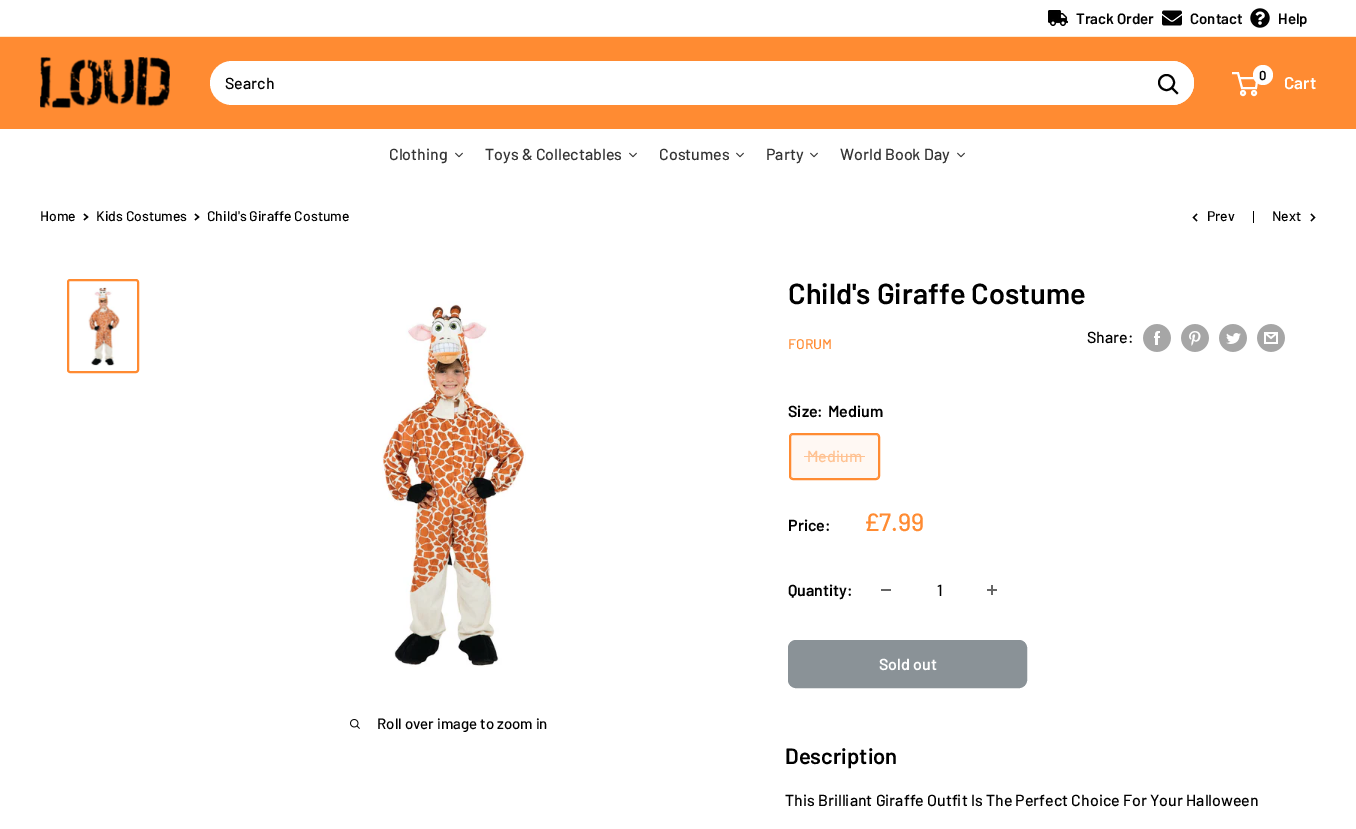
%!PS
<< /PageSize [1356 829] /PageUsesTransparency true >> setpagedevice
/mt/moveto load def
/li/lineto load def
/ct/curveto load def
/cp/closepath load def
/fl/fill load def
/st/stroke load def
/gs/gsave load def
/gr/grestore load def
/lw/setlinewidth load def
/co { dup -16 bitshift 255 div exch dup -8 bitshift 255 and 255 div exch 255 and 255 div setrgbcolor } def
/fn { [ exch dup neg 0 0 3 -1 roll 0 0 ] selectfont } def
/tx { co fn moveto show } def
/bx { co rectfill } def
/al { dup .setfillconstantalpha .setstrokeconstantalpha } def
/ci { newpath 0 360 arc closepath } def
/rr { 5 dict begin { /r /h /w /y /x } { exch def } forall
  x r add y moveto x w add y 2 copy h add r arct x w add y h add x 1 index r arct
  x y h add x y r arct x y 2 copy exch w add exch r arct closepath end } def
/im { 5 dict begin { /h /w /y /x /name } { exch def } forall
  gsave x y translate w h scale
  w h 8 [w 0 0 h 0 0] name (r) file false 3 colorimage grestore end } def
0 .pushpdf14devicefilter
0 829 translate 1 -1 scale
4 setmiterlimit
0 0 1356 829 16#FFFFFF bx
0 36 1356 1 16#FEEBD3 bx
(media/1.raw) 1048 10 20 16 im
(media/2.raw) 1162 10 20 16 im
(media/3.raw) 1250 8 20 20 im
0 37 1356 92 16#FF8B32 bx
(media/4.raw) 40 57 130 52 im
16#FFFFFF co
210 61 984 44 22 rr fl
1144 61 mt 1172 61 li 1184 61 1194 71 1194 83 ct 1194 95 1184 105 1172 105 ct 1144 105 li cp fl
16#000000 co
2 lw
2 setlinecap
1177 93 mt 1172 88 li st
0 setlinecap
1166.5 82.5 7.5 ci st
16#FFFFFF co
1243 93 2 ci st
1254 93 2 ci st
1239.5 78 mt 1257.5 78 li 1256 88 li 1242 88 li 1238 73 li 1232 73 li st
1263 75 10 ci fl
(media/5.raw) 455 152 8 6 im
(media/5.raw) 629 152 8 6 im
(media/5.raw) 736 152 8 6 im
(media/5.raw) 810 152 8 6 im
(media/5.raw) 957 152 8 6 im
16#000000 co
1.3 lw
2 setlinecap
84.5 214.5 mt 87.5 217 li 84.5 219.5 li st
195.5 214.5 mt 198.5 217 li 195.5 219.5 li st
1.1 lw
1196.5 220.5 mt 1193.5 217.5 li 1196.5 214.5 li st
1253 211 1 12 16#000000 bx
1311.5 214.5 mt 1314.5 217.5 li 1311.5 220.5 li st
16#FF8B32 co
2 lw
0 setlinecap
68 280 70 92 2 rr st
(media/6.raw) 88 287 32 79 im
(media/7.raw) 382 301 144 366 im
(media/8.raw) 350 719 10 10 im
(media/9.raw) 1143 324 28 28 im
(media/10.raw) 1181 324 28 28 im
(media/11.raw) 1219 324 28 28 im
(media/12.raw) 1257 324 28 28 im
1 lw
789.5 433.5 90 46 3.5 rr st
0.06 al
790 434 89 45 16#FF8B32 bx
1 al
790.5 434.5 88 44 2.5 rr st
804 456 61 1 16#FFC292 bx
881 589 10 2 16#666666 bx
(media/13.raw) 987 585 10 10 im
16#8A9297 co
788.5 640.5 238 47 7.5 rr gs fl gr
st
(Track Order) 1076 24 /Barlow-SemiBold 15 16#000000 tx
(Contact) 1190 24 /Barlow-SemiBold 15 16#000000 tx
(Help) 1278 24 /Barlow-SemiBold 15 16#000000 tx
(Search) 225 89 /Barlow-Medium 16 16#000000 tx
(0) 1259 80 /Barlow-SemiBold 13 16#000000 tx
(Cart) 1284 89 /Barlow-SemiBold 17 16#FFFFFF tx
(Clothing) 389 160 /Barlow-Medium 16 16#333333 tx
(Toys & Collectables) 485 160 /Barlow-Medium 16 16#333333 tx
(Costumes) 659 160 /Barlow-Medium 16 16#333333 tx
(Party) 766 160 /Barlow-Medium 16 16#333333 tx
(World Book Day) 840 160 /Barlow-Medium 16 16#333333 tx
(Home) 40 221 /Barlow-Medium 14 16#000000 tx
(Kids Costumes) 96 221 /Barlow-Medium 14 16#000000 tx
(Child's Giraffe Costume) 207 221 /Barlow-Medium 14 16#000000 tx
(Prev) 1207 221 /Barlow-Medium 14 16#000000 tx
(Next) 1272 221 /Barlow-Medium 14 16#000000 tx
(Roll over image to zoom in) 377 729 /Barlow-Medium 15 16#000000 tx
(Child's Giraffe Costume) 788 304 /Barlow-SemiBold 29 16#000000 tx
(FORUM) 788 349 /Barlow-Medium 14 16#FF8B32 tx
(Share:) 1087 343 /Barlow-Medium 16 16#000000 tx
(Size:) 788 417 /Barlow-SemiBold 16 16#000000 tx
(Medium) 828 417 /Barlow-SemiBold 16 16#000000 tx
(Medium) 807 462 /Barlow-Medium 16 16#FFC292 tx
(Price:) 788 531 /Barlow-SemiBold 16 16#000000 tx
(£7.99) 864 531 /Barlow-Medium 25 16#FF8B32 tx
(Quantity:) 788 596 /Barlow-SemiBold 16 16#000000 tx
(1) 937 596 /Barlow-Medium 16 16#000000 tx
(Sold out) 879 670 /Barlow-SemiBold 16 16#FFFFFF tx
(Description) 785 764 /Barlow-SemiBold 22 16#000000 tx
(This Brilliant Giraffe Outfit Is The Perfect Choice For Your Halloween) 785 806 /Barlow-Medium 16 16#000000 tx
.poppdf14devicefilter showpage
